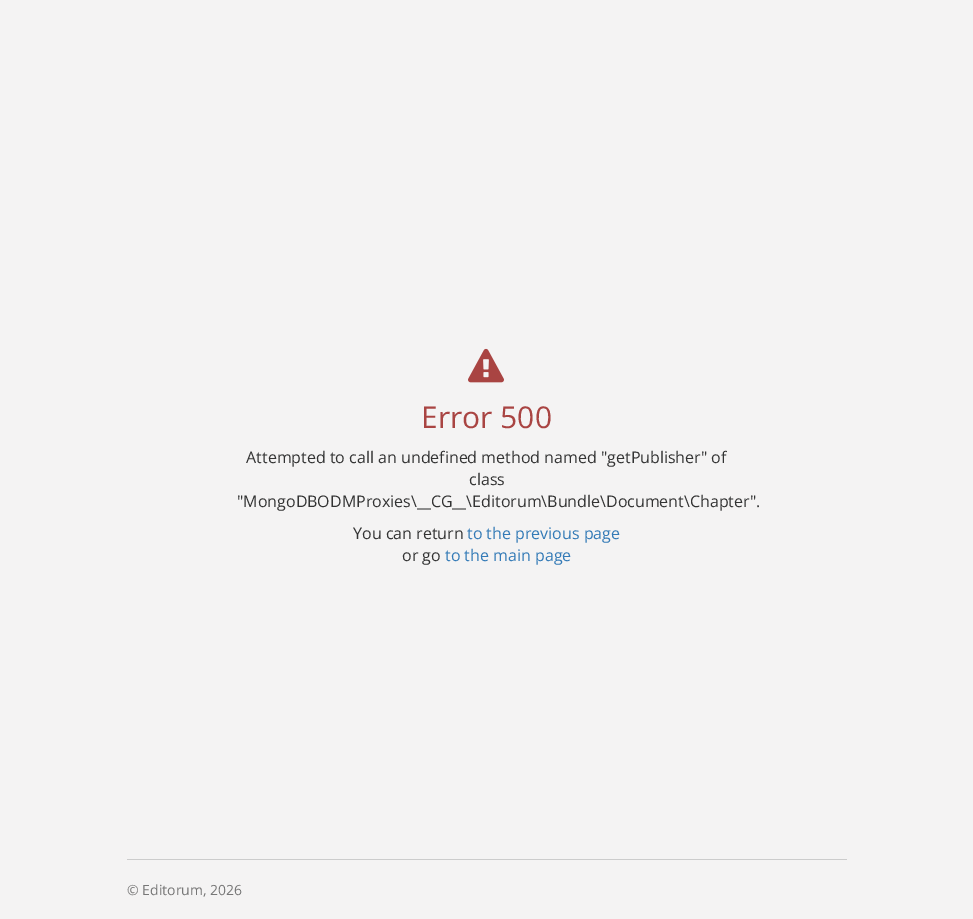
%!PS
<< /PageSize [973 919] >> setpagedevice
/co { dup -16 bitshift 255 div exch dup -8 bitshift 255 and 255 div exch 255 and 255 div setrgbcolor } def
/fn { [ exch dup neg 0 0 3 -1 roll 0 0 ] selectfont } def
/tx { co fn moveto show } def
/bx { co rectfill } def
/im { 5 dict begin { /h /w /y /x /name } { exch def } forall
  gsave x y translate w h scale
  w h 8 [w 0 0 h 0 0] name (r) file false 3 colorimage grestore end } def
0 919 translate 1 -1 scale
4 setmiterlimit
0 0 973 919 16#F4F3F3 bx
(media/1.raw) 468 348 36 35 im
127 859 720 1 16#CCCCCC bx
(Error 500) 421 428 /OpenSans-Regular 30 16#A94442 tx
(Attempted to call an undefined method named "getPublisher" of) 246 463 /OpenSans-Regular 16 16#333333 tx
(class) 469 485 /OpenSans-Regular 16 16#333333 tx
("MongoDBODMProxies\\__CG__\\Editorum\\Bundle\\Document\\Chapter".) 237 507 /OpenSans-Regular 16 16#333333 tx
(You can return) 353 539 /OpenSans-Regular 16 16#333333 tx
(to the previous page) 467 539 /OpenSans-Regular 16 16#337AB7 tx
(or go) 402 561 /OpenSans-Regular 16 16#333333 tx
(to the main page) 445 561 /OpenSans-Regular 16 16#337AB7 tx
(© Editorum, 2026) 127 895 /OpenSans-Regular 14 16#777777 tx
showpage
